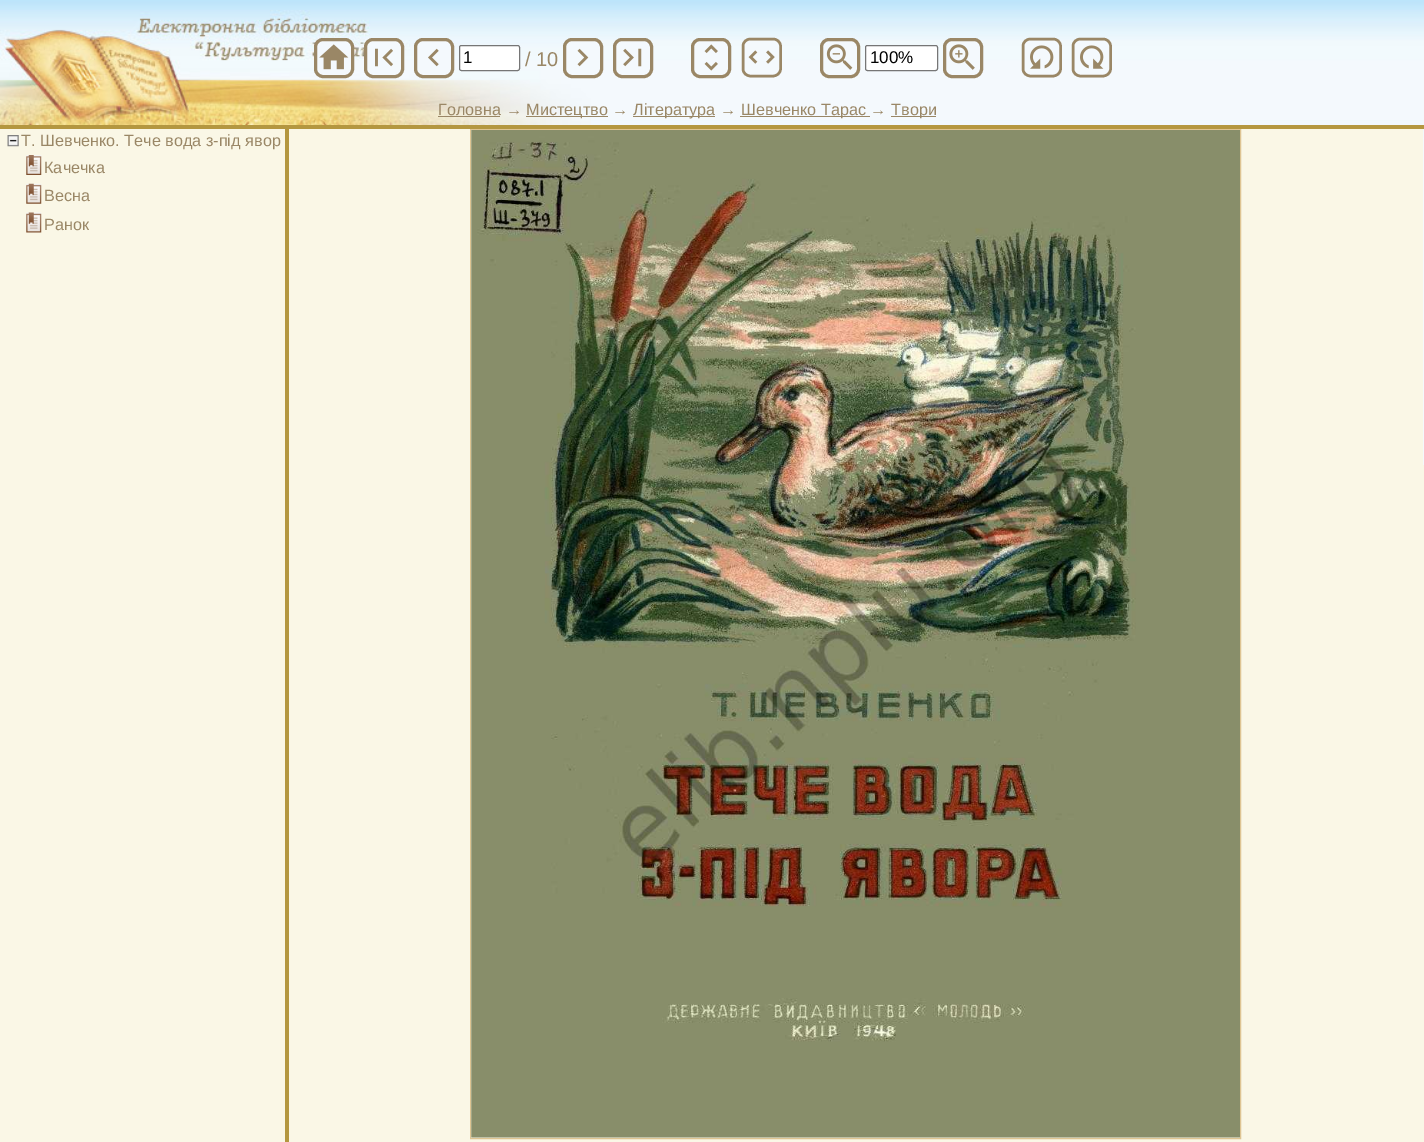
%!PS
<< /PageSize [1424 1142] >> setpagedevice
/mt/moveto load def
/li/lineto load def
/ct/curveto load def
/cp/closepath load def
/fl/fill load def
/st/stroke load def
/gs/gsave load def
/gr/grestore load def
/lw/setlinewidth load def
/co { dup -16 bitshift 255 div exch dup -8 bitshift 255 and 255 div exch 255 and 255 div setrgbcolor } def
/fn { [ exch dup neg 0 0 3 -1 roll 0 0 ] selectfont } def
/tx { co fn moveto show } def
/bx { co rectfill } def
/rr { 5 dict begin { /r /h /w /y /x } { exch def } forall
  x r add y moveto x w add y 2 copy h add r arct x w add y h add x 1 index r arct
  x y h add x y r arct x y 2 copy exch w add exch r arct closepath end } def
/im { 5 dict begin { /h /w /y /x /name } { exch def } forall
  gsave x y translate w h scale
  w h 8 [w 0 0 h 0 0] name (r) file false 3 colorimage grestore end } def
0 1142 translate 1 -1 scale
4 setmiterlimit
0 0 1424 1142 16#FAF7E6 bx
(media/1.raw) 591 120 833 345 im
(media/2.raw) 0 0 1424 120 im
0 125 1424 4 16#B49740 bx
(media/3.raw) 0 10 591 115 im
16#F4F9FD co
315.5 39.5 37 37 7.5 rr gs fl gr
16#9A8766 co
3 lw
st
(media/4.raw) 319 44 30 26 im
16#F4F9FD co
365.5 39.5 37 37 7.5 rr gs fl gr
16#9A8766 co
st
(media/5.raw) 375 48 18 19 im
16#F4F9FD co
415.5 39.5 37 37 7.5 rr gs fl gr
16#9A8766 co
st
(media/6.raw) 428 48 11 19 im
16#FFFFFF co
459.5 45.5 60 25 2 rr gs fl gr
16#767676 co
1 lw
st
16#F4F9FD co
564.5 39.5 37 37 7.5 rr gs fl gr
16#9A8766 co
3 lw
st
(media/7.raw) 577 48 12 19 im
16#F4F9FD co
614.5 39.5 37 37 7.5 rr gs fl gr
16#9A8766 co
st
(media/8.raw) 623 48 19 19 im
16#F4F9FD co
692.5 39.5 37 37 7.5 rr gs fl gr
16#9A8766 co
st
(media/9.raw) 704 44 14 27 im
16#F4F9FD co
782 46 mt 782 69 li 782 74 778 78 773 78 ct 750 78 li 746 78 742 74 742 69 ct 742 46 li 742 41 746 38 750 38 ct 773 38 li 778 38 782 41 782 46 ct cp fl
16#9A8766 co
2.5 lw
780.5 46 mt 780.5 69 li 780.5 73 777 76 773 76 ct 750.5 76 li 746.5 76 743 73 743 69 ct 743 46 li 743 42 746.5 39 750.5 39 ct 773 39 li 777 39 780.5 42 780.5 46 ct cp st
(media/10.raw) 748 50 27 14 im
16#F4F9FD co
821.5 39.5 37 37 7.5 rr gs fl gr
16#9A8766 co
3 lw
st
(media/11.raw) 826 44 27 26 im
16#FFFFFF co
865.5 45.5 72 25 2 rr gs fl gr
16#767676 co
1 lw
st
16#F4F9FD co
944.5 39.5 37 37 7.5 rr gs fl gr
16#9A8766 co
3 lw
st
(media/12.raw) 949 44 26 26 im
16#F4F9FD co
1022 46 mt 1022 69 li 1022 74 1026 78 1030 78 ct 1053 78 li 1058 78 1062 74 1062 69 ct 1062 46 li 1062 41 1058 38 1053 38 ct 1030 38 li 1026 38 1022 41 1022 46 ct cp fl
16#9A8766 co
2.5 lw
1023 46 mt 1023 69 li 1023 73 1026.5 76 1030.5 76 ct 1053 76 li 1057 76 1060.5 73 1060.5 69 ct 1060.5 46 li 1060.5 42 1057 39 1053 39 ct 1030.5 39 li 1026.5 39 1023 42 1023 46 ct cp st
(media/13.raw) 1030 45 24 24 im
16#F4F9FD co
1112 46 mt 1112 69 li 1112 74 1108 78 1103 78 ct 1080 78 li 1076 78 1072 74 1072 69 ct 1072 46 li 1072 41 1076 38 1080 38 ct 1103 38 li 1108 38 1112 41 1112 46 ct cp fl
16#9A8766 co
1110.5 46 mt 1110.5 69 li 1110.5 73 1107 76 1103 76 ct 1080.5 76 li 1076.5 76 1073 73 1073 69 ct 1073 46 li 1073 42 1076.5 39 1080.5 39 ct 1103 39 li 1107 39 1110.5 42 1110.5 46 ct cp st
(media/14.raw) 1080 45 24 24 im
438 116 62 1 16#9A8766 bx
526 116 82 1 16#9A8766 bx
633 116 82 1 16#9A8766 bx
740 116 130 1 16#9A8766 bx
891 116 45 1 16#9A8766 bx
285 129 4 1013 16#B49740 bx
(media/15.raw) 7 135 12 12 im
(media/16.raw) 26 155 16 20 im
(media/17.raw) 26 183 16 21 im
(media/18.raw) 26 212 16 21 im
591 129 832 336 16#FAF7E6 bx
16#DEC492 co
1 lw
470.5 129.5 770 1009 rectstroke
(media/19.raw) 471 130 769 1008 im
(1) 463 63 /LiberationSans-Regular 17 16#000000 tx
(/ 10) 525 66 /LiberationSans-Regular 20 16#9A8766 tx
(100%) 870 63 /LiberationSans-Regular 17 16#000000 tx
(Головна →) 438 115 /LiberationSans-Regular 16.25 16#9A8766 tx
(Мистецтво →) 526 115 /LiberationSans-Regular 16.25 16#9A8766 tx
(Література →) 633 115 /LiberationSans-Regular 16.25 16#9A8766 tx
(Шевченко Тарас →) 741 115 /LiberationSans-Regular 16.25 16#9A8766 tx
(Твори) 891 115 /LiberationSans-Regular 16.25 16#9A8766 tx
(Т. Шевченко. Тече вода з-під явор) 21 146 /LiberationSans-Regular 16.25 16#9A8766 tx
(Качечка) 44 173 /LiberationSans-Regular 16.25 16#9A8766 tx
(Весна) 44 201 /LiberationSans-Regular 16.25 16#9A8766 tx
(Ранок) 44 230 /LiberationSans-Regular 16.25 16#9A8766 tx
showpage
